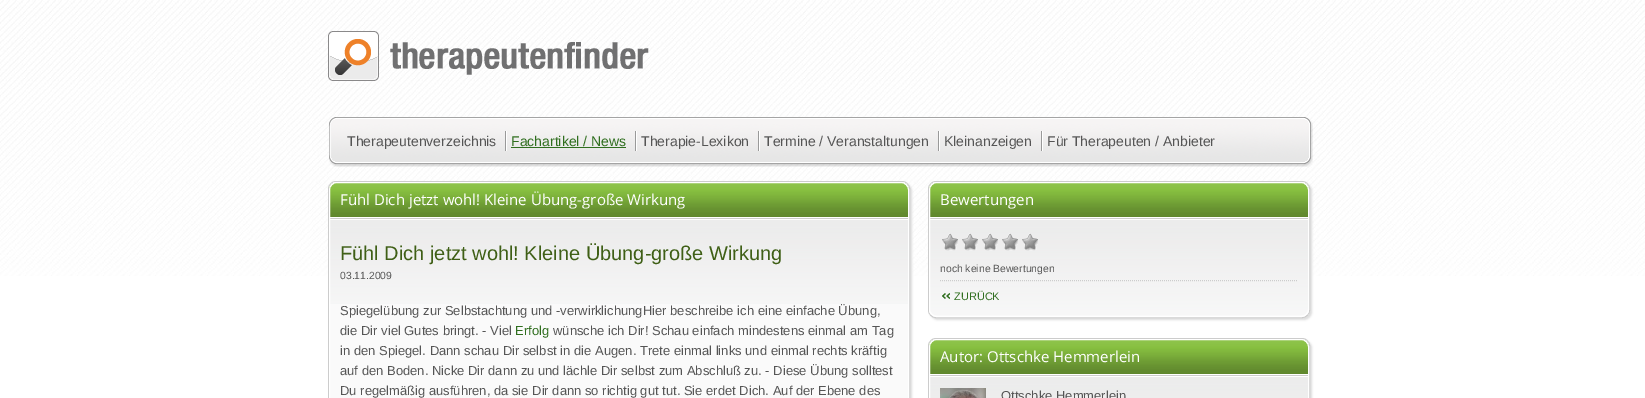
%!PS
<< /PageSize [1645 398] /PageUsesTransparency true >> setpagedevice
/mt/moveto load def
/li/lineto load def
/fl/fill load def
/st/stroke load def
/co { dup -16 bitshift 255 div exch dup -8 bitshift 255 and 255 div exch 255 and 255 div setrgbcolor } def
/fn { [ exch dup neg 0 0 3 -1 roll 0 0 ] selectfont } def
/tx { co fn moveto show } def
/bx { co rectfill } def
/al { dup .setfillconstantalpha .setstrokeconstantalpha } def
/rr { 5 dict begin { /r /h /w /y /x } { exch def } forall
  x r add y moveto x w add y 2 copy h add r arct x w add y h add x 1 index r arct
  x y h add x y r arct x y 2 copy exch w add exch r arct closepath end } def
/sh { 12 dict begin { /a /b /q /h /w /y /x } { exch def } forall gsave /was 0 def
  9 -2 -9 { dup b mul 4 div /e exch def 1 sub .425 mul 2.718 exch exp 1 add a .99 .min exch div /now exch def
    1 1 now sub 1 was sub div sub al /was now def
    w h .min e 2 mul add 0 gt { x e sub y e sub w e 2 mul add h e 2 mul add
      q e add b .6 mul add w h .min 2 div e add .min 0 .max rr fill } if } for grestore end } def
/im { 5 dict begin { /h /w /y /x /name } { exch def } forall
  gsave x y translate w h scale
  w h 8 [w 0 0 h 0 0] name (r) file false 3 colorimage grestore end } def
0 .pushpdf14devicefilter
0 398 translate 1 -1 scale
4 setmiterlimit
0 0 1645 398 16#FFFFFF bx
(media/1.raw) 0 0 1645 276 im
(media/2.raw) 328 31 321 50 im
(media/3.raw) 329 117 984 50 im
505 131 1 20 16#999999 bx
635 131 1 20 16#999999 bx
506 131 1 20 16#FFFFFF bx
511 147 115 1 16#2F6E1E bx
758 131 1 20 16#999999 bx
636 131 1 20 16#FFFFFF bx
938 131 1 20 16#999999 bx
759 131 1 20 16#FFFFFF bx
1041 131 1 20 16#999999 bx
939 131 1 20 16#FFFFFF bx
1042 131 1 20 16#FFFFFF bx
16#DDDDDD co
330 183 582 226 8 1 1 sh
16#CCCCCC co
328.5 181.5 581 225 7.5 rr st
16#FAFAFA co
329 182 580 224 8 rr fl
(media/4.raw) 329 183 580 121 im
16#FFFFFF co
329.5 182.5 579 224 7.5 rr st
16#DDDDDD co
930 183 382 137 8 1 1 sh
16#CCCCCC co
928.5 181.5 381 136 7.5 rr st
16#FAFAFA co
929 182 380 135 8 rr fl
(media/5.raw) 929 183 380 132 im
16#FFFFFF co
929.5 182.5 379 134 7.5 rr st
(media/6.raw) 942 233 96 18 im
16#CCCCCC co
[1 1] 0 setdash
940 280.5 mt 1298 280.5 li st
(media/7.raw) 942 293 8 6 im
16#DDDDDD co
930 340 382 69 8 1 1 sh
16#CCCCCC co
[] 0 setdash
928.5 338.5 381 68 7.5 rr st
(media/8.raw) 929 340 380 58 im
16#FFFFFF co
929.5 339.5 379 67 7.5 rr st
(media/9.raw) 940 388 46 10 im
(Therapeutenverzeichnis) 347 146 /LiberationSans-Regular 14 16#555555 tx
(Fachartikel / News) 511 146 /LiberationSans-Regular 14 16#2F6E1E tx
(Therapie-Lexikon) 641 146 /LiberationSans-Regular 14 16#555555 tx
(Termine / Veranstaltungen) 764 146 /LiberationSans-Regular 14 16#555555 tx
(Kleinanzeigen) 944 146 /LiberationSans-Regular 14 16#555555 tx
(Für Therapeuten / Anbieter) 1047 146 /LiberationSans-Regular 14 16#555555 tx
(Fühl Dich jetzt wohl! Kleine Übung-große Wirkung) 340 205 /OpenSans-Regular 15 16#FFFFFF tx
(Fühl Dich jetzt wohl! Kleine Übung-große Wirkung) 340 260 /LiberationSans-Regular 20 16#3F5F16 tx
(03.11.2009) 340 279 /LiberationSans-Regular 10.4 16#555555 tx
(Spiegelübung zur Selbstachtung und -verwirklichungHier beschreibe ich eine einfache Übung,) 340 315 /LiberationSans-Regular 13 16#555555 tx
(die Dir viel Gutes bringt. - Viel) 340 335 /LiberationSans-Regular 13 16#555555 tx
(Erfolg) 515 335 /LiberationSans-Regular 13 16#2F6E1E tx
(wünsche ich Dir! Schau einfach mindestens einmal am Tag) 553 335 /LiberationSans-Regular 13 16#555555 tx
(in den Spiegel. Dann schau Dir selbst in die Augen. Trete einmal links und einmal rechts kräftig) 340 355 /LiberationSans-Regular 13 16#555555 tx
(auf den Boden. Nicke Dir dann zu und lächle Dir selbst zum Abschluß zu. - Diese Übung solltest) 340 375 /LiberationSans-Regular 13 16#555555 tx
(Du regelmäßig ausführen, da sie Dir dann so richtig gut tut. Sie erdet Dich. Auf der Ebene des) 340 395 /LiberationSans-Regular 13 16#555555 tx
(Bewertungen) 940 205 /OpenSans-Regular 15 16#FFFFFF tx
(noch keine Bewertungen) 940 272 /LiberationSans-Regular 10.4 16#555555 tx
(ZURÜCK) 954 300 /LiberationSans-Regular 11 16#2F6E1E tx
(Autor: Ottschke Hemmerlein) 940 362 /OpenSans-Regular 15 16#FFFFFF tx
(Ottschke Hemmerlein) 1001 400 /LiberationSans-Regular 13 16#555555 tx
.poppdf14devicefilter showpage
